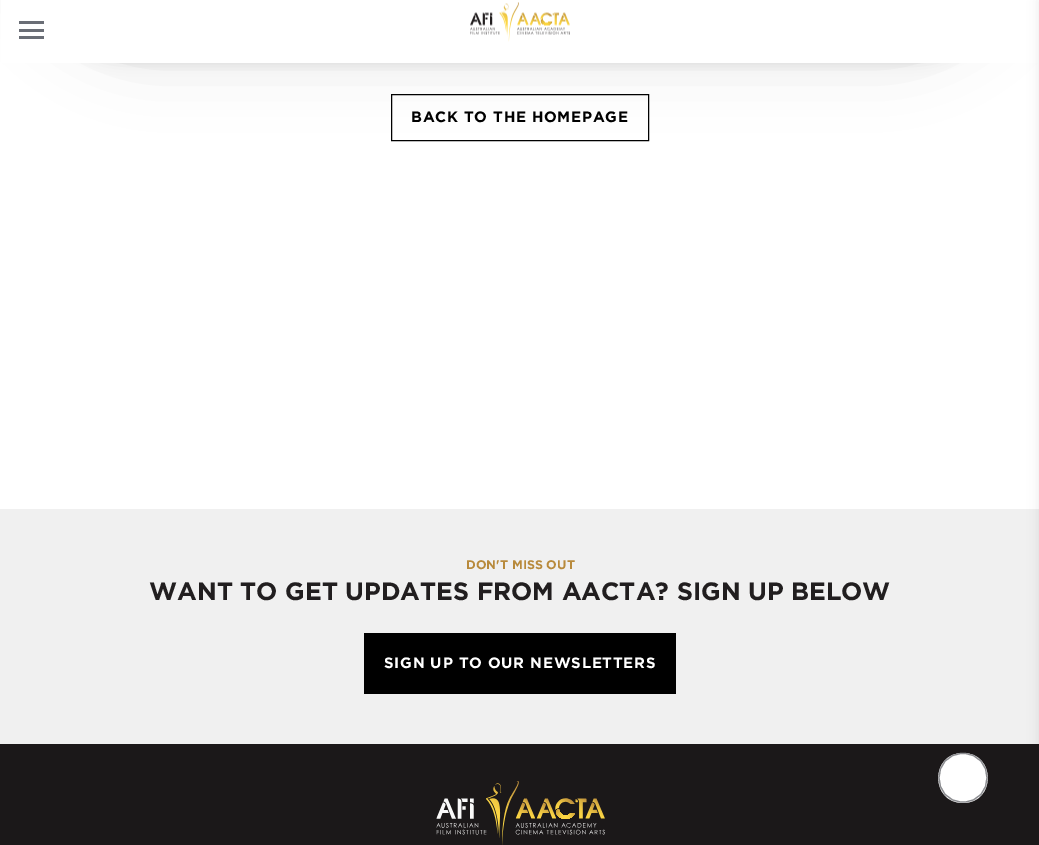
%!PS
<< /PageSize [1039 845] /PageUsesTransparency true >> setpagedevice
/mt/moveto load def
/ct/curveto load def
/cp/closepath load def
/fl/fill load def
/st/stroke load def
/lw/setlinewidth load def
/co { dup -16 bitshift 255 div exch dup -8 bitshift 255 and 255 div exch 255 and 255 div setrgbcolor } def
/fn { [ exch dup neg 0 0 3 -1 roll 0 0 ] selectfont } def
/tx { co fn moveto show } def
/bx { co rectfill } def
/al { dup .setfillconstantalpha .setstrokeconstantalpha } def
/rr { 5 dict begin { /r /h /w /y /x } { exch def } forall
  x r add y moveto x w add y 2 copy h add r arct x w add y h add x 1 index r arct
  x y h add x y r arct x y 2 copy exch w add exch r arct closepath end } def
/sh { 12 dict begin { /a /b /q /h /w /y /x } { exch def } forall gsave /was 0 def
  9 -2 -9 { dup b mul 4 div /e exch def 1 sub .425 mul 2.718 exch exp 1 add a .99 .min exch div /now exch def
    1 1 now sub 1 was sub div sub al /was now def
    w h .min e 2 mul add 0 gt { x e sub y e sub w e 2 mul add h e 2 mul add
      q e add b .6 mul add w h .min 2 div e add .min 0 .max rr fill } if } for grestore end } def
/im { 5 dict begin { /h /w /y /x /name } { exch def } forall
  gsave x y translate w h scale
  w h 8 [w 0 0 h 0 0] name (r) file false 3 colorimage grestore end } def
0 .pushpdf14devicefilter
0 845 translate 1 -1 scale
4 setmiterlimit
0 0 1039 845 16#FFFFFF bx
16#000000 co
0 -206 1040 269 188 6 .1 sh
391.5 94.5 257 46 rectstroke
0 -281 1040 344 188 31 .1 sh
1 0 1038 63 16#FFFFFF bx
19 29 25 3 16#6A6E76 bx
19 21 25 3 16#6A6E76 bx
19 36 25 3 16#6A6E76 bx
(media/1.raw) 470 2 100 40 im
0 509 1039 235 16#F0F0F0 bx
0 744 1039 101 16#1B1819 bx
16#000000 co
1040 0 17 845 0 6 .1 sh
364 633 312 61 16#000000 bx
(media/2.raw) 436 781 169 64 im
16#FFFFFF co
963 803 mt 996 803 996 753 963 753 ct 930 753 930 803 963 803 ct cp fl
16#8B8C90 co
1.2 lw
963 802 mt 995 802 995 753.5 963 753.5 ct 931 753.5 931 802 963 802 ct cp st
/Gotham-Bold 15 fn
16#000000 co
411 122 mt .75 0 (BACK TO THE HOMEPAGE) ashow
(DON'T MISS OUT) 466 569 /Gotham-Bold 12.5 16#B88A3C tx
(WANT TO GET UPDATES FROM AACTA? SIGN UP BELOW) 149 600 /Gotham-Bold 25 16#211E1F tx
/Gotham-Bold 15 fn
16#FFFFFF co
384 668 mt .75 0 (SIGN UP TO OUR NEWSLETTERS) ashow
.poppdf14devicefilter showpage
